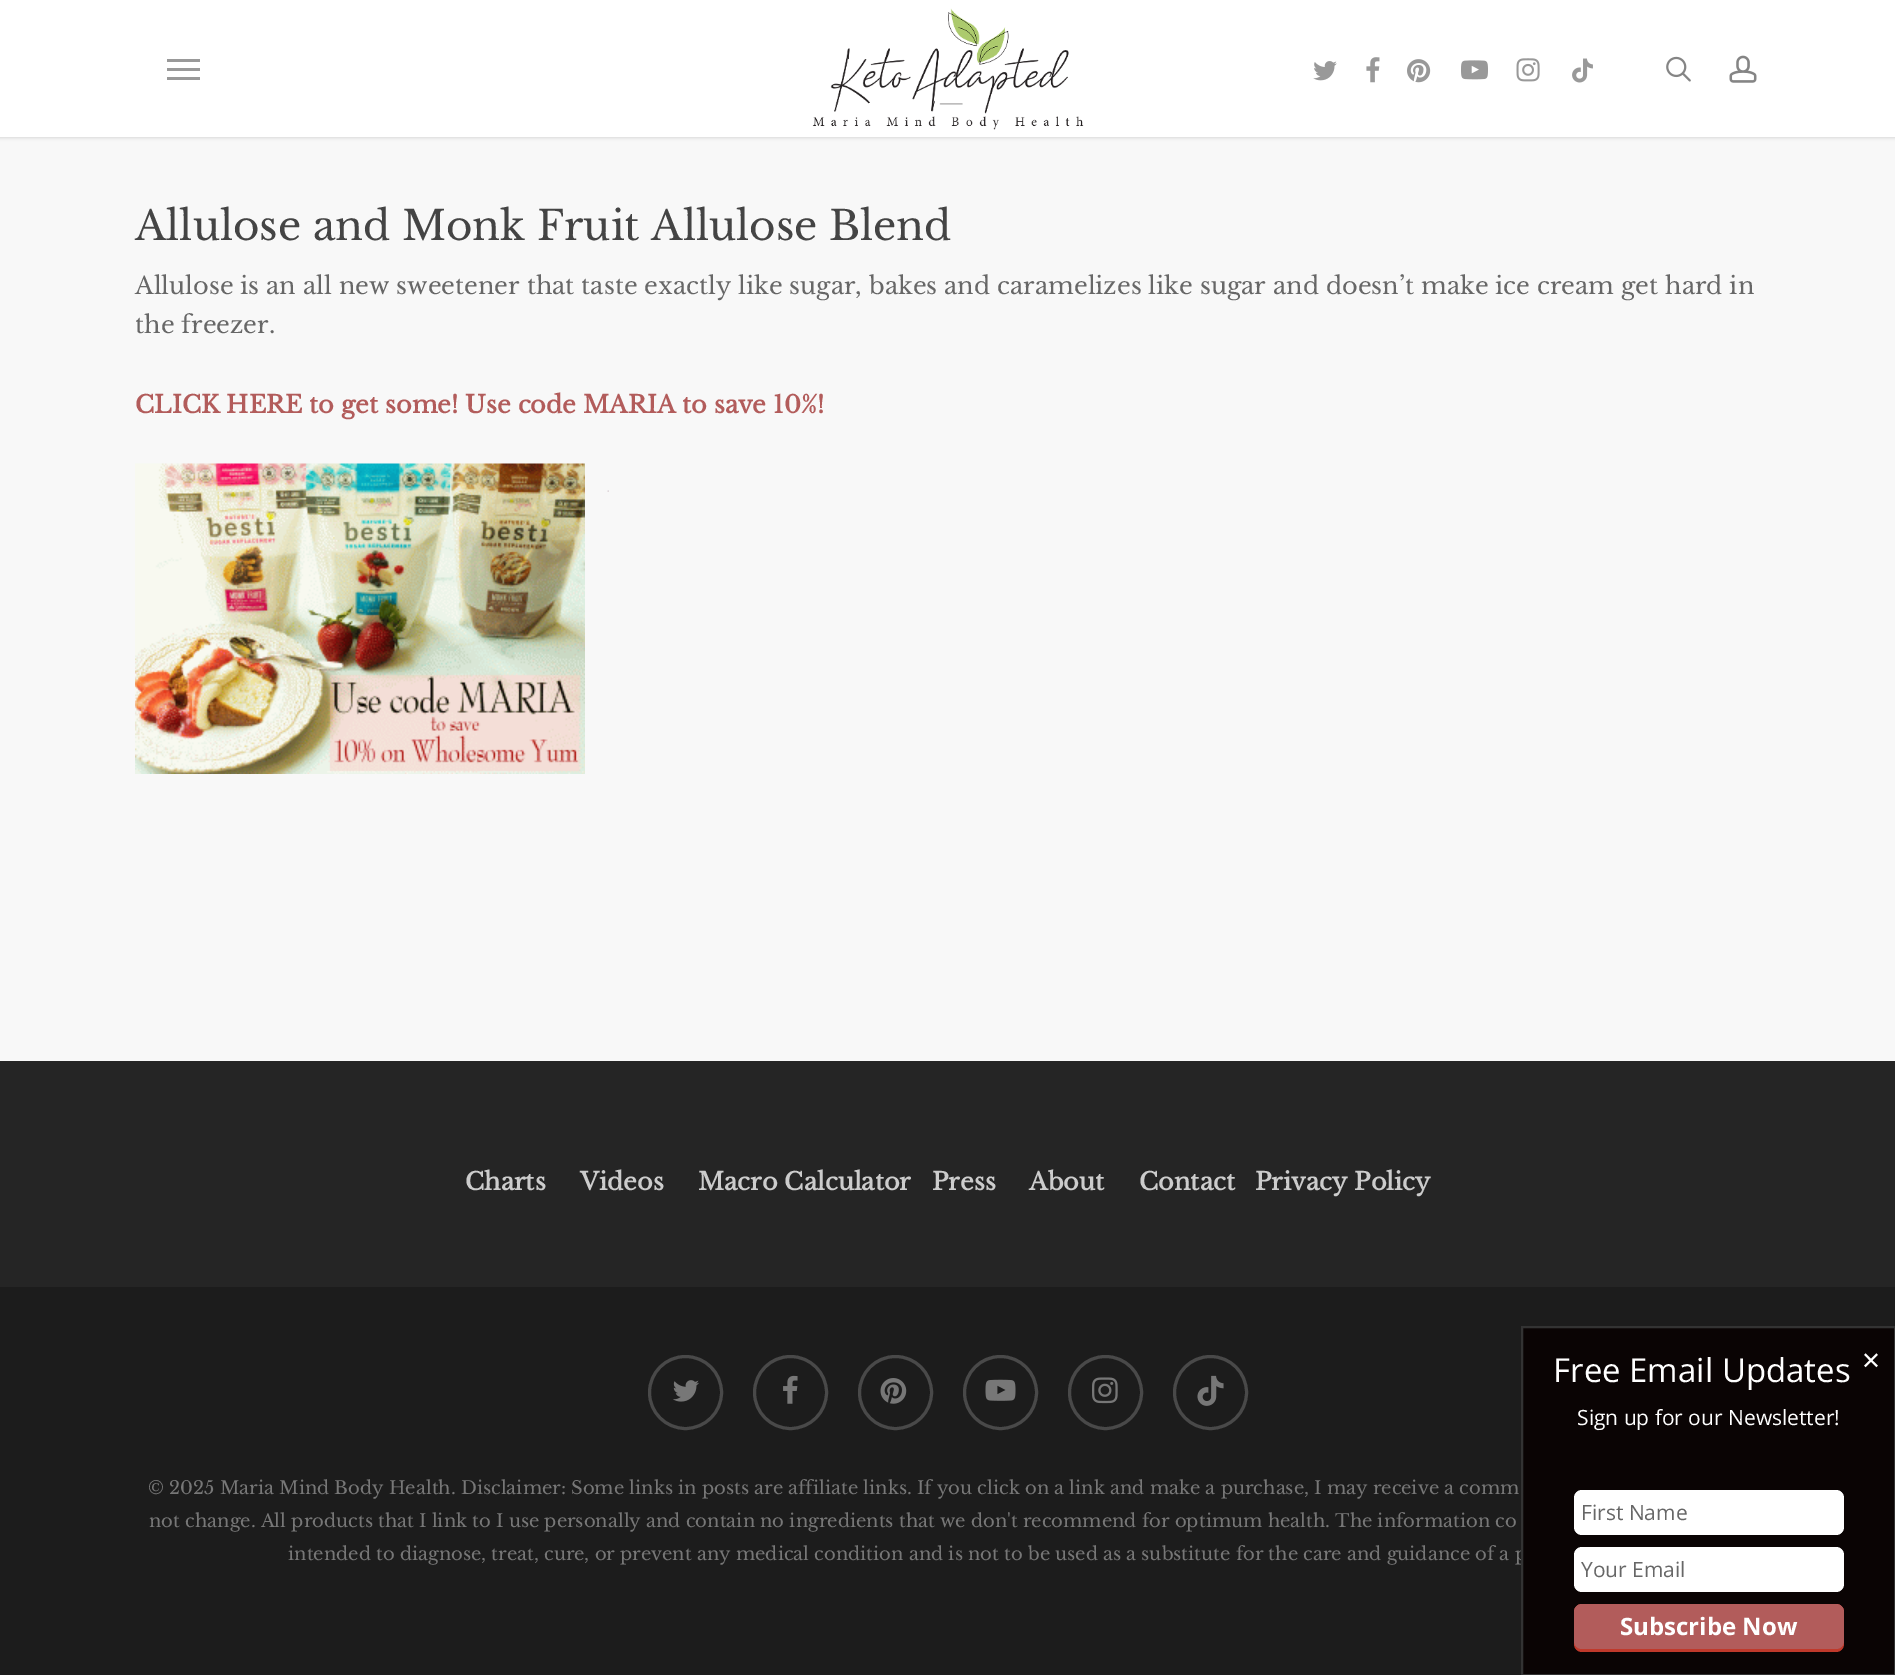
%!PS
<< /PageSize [1895 1675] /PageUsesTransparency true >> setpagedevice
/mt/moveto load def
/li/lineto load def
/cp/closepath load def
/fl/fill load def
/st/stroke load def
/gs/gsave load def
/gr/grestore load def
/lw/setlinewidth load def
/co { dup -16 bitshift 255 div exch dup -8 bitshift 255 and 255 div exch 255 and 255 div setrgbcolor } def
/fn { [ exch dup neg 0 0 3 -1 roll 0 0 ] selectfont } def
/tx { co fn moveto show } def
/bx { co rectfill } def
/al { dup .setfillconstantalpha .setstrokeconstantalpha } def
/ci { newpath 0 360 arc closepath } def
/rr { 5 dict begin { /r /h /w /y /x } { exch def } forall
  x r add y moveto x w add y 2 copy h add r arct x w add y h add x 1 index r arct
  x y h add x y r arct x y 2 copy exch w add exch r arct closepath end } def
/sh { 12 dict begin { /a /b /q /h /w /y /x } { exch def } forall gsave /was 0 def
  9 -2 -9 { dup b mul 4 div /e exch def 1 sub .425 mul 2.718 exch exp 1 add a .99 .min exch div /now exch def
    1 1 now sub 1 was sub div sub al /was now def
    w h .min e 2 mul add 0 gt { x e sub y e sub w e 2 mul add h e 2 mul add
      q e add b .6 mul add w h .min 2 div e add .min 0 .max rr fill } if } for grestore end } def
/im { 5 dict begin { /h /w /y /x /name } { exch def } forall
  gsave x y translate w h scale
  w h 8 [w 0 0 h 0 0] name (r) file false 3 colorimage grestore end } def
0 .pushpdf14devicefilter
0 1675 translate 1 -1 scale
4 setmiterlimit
0 0 1895 1675 16#F8F8F8 bx
16#000000 co
0 0 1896 137 0 2 .22 sh
0 0 1895 137 16#FFFFFF bx
167 59 33 3 16#999999 bx
167 77 33 3 16#999999 bx
167 68 33 3 16#999999 bx
(media/1.raw) 812 8 272 122 im
(media/2.raw) 1313 61 24 20 im
(media/3.raw) 1366 57 14 26 im
(media/4.raw) 1407 59 24 24 im
(media/5.raw) 1461 60 27 20 im
(media/6.raw) 1516 58 24 24 im
(media/7.raw) 1572 58 21 25 im
(media/8.raw) 1666 56 25 26 im
(media/9.raw) 1729 55 28 28 im
(media/10.raw) 135 463 450 311 im
(media/11.raw) 607 490 2 2 im
0 1061 1895 226 16#252525 bx
0 1287 1895 388 16#1C1C1C bx
(media/12.raw) 673 1380 26 22 im
16#494949 co
3 lw
685.5 1392.5 36 ci st
(media/13.raw) 783 1375 15 29 im
790.5 1392.5 36 ci st
(media/14.raw) 880 1378 27 26 im
895.5 1392.5 36 ci st
(media/15.raw) 985 1379 31 22 im
1000.5 1392.5 36 ci st
(media/16.raw) 1092 1377 26 27 im
1105.5 1392.5 36 ci st
(media/17.raw) 1197 1375 27 31 im
1210.5 1392.5 36 ci st
(Allulose and Monk Fruit Allulose Blend) 135 240 /LibreBaskerville-Regular 40.5 16#444444 tx
(Allulose is an all new sweetener that taste exactly like sugar, bakes and caramelizes like sugar and doesn’t make ice cream get hard in) 135 294 /LibreBaskerville-Regular 24 16#676767 tx
(the freezer.) 135 333 /LibreBaskerville-Regular 24 16#676767 tx
(CLICK HERE to get some! Use code MARIA to save 10%!) 135 413 /LibreBaskerville-Bold 24 16#B25C5B tx
(Charts) 465 1190 /LibreBaskerville-Bold 24 16#CCCCCC tx
(Videos) 580 1190 /LibreBaskerville-Bold 24 16#CCCCCC tx
(Macro Calculator) 698 1190 /LibreBaskerville-Bold 24 16#CCCCCC tx
(Press) 932 1190 /LibreBaskerville-Bold 24 16#CCCCCC tx
(About) 1029 1190 /LibreBaskerville-Bold 24 16#CCCCCC tx
(Contact) 1139 1190 /LibreBaskerville-Bold 24 16#CCCCCC tx
(Privacy Policy) 1255 1190 /LibreBaskerville-Bold 24 16#CCCCCC tx
(© 2025 Maria Mind Body Health. Disclaimer: Some links in posts are affiliate links. If you click on a link and make a purchase, I may receive a comm) 148 1494 /LibreBaskerville-Regular 18 16#777777 tx
(not change. All products that I link to I use personally and contain no ingredients that we don't recommend for optimum health. The information co) 149 1527 /LibreBaskerville-Regular 18 16#777777 tx
(intended to diagnose, treat, cure, or prevent any medical condition and is not to be used as a substitute for the care and guidance of a p) 288 1560 /LibreBaskerville-Regular 18 16#777777 tx
16#0A0404 co
1522 1327 mt 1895 1327 li 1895 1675 li 1522 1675 li cp gs fl gr
16#333333 co
2 lw
st
(Free Email Updates) 1553 1382 /OpenSans-Regular 33 16#FFFFFF tx
(✕) 1861 1369 /DejaVuSans-Regular 24 16#FFFFFF tx
(Sign up for our Newsletter!) 1577 1425 /OpenSans-Regular 21 16#FFFFFF tx
1574 1490 270 45 8 rr fl
(First Name) 1581 1520 /OpenSans-Regular 21 16#676767 tx
16#FFFFFF co
1574 1547 270 45 8 rr fl
(Your Email) 1581 1577 /OpenSans-Regular 21 16#676767 tx
16#C0392B co
1574 1604 270 48 8 rr fl
16#B25C5B co
1574 1604 270 45 8 rr fl
(Subscribe Now) 1620 1635 /OpenSans-Bold 24 16#FFFFFF tx
.poppdf14devicefilter showpage
